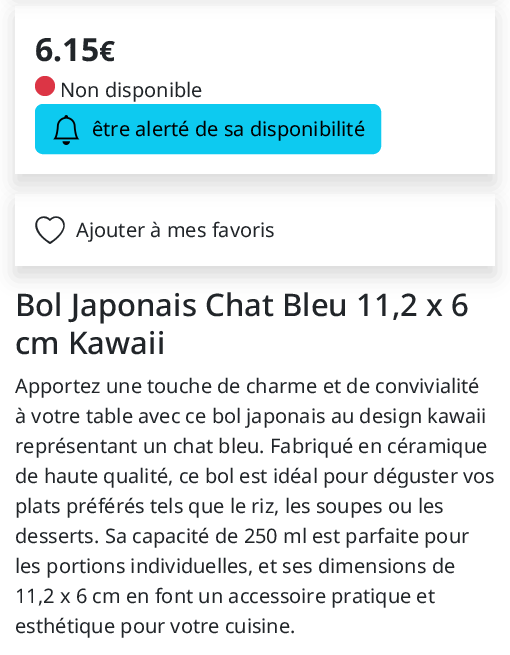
%!PS
<< /PageSize [510 655] /PageUsesTransparency true >> setpagedevice
/mt/moveto load def
/li/lineto load def
/ct/curveto load def
/cp/closepath load def
/fl/fill load def
/st/stroke load def
/gs/gsave load def
/gr/grestore load def
/co { dup -16 bitshift 255 div exch dup -8 bitshift 255 and 255 div exch 255 and 255 div setrgbcolor } def
/fn { [ exch dup neg 0 0 3 -1 roll 0 0 ] selectfont } def
/tx { co fn moveto show } def
/bx { co rectfill } def
/al { dup .setfillconstantalpha .setstrokeconstantalpha } def
/ci { newpath 0 360 arc closepath } def
/rr { 5 dict begin { /r /h /w /y /x } { exch def } forall
  x r add y moveto x w add y 2 copy h add r arct x w add y h add x 1 index r arct
  x y h add x y r arct x y 2 copy exch w add exch r arct closepath end } def
/sh { 12 dict begin { /a /b /q /h /w /y /x } { exch def } forall gsave /was 0 def
  9 -2 -9 { dup b mul 4 div /e exch def 1 sub .425 mul 2.718 exch exp 1 add a .99 .min exch div /now exch def
    1 1 now sub 1 was sub div sub al /was now def
    w h .min e 2 mul add 0 gt { x e sub y e sub w e 2 mul add h e 2 mul add
      q e add b .6 mul add w h .min 2 div e add .min 0 .max rr fill } if } for grestore end } def
/im { 5 dict begin { /h /w /y /x /name } { exch def } forall
  gsave x y translate w h scale
  w h 8 [w 0 0 h 0 0] name (r) file false 3 colorimage grestore end } def
0 .pushpdf14devicefilter
0 655 translate 1 -1 scale
4 setmiterlimit
0 0 510 655 16#FFFFFF bx
16#000000 co
15 -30 480 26 0 10 .15 sh
gs
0 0 mt 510 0 li 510 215 li 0 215 li cp 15 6 mt 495 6 li 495 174 li 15 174 li cp eoclip newpath
15 16 480 168 0 10 .15 sh
gr
16#DC3545 co
45 86 10 ci fl
16#0DCAF0 co
35.5 104.5 345 49 7.5 rr gs fl gr
st
(media/1.raw) 53 115 27 30 im
gs
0 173 mt 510 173 li 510 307 li 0 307 li cp 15 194 mt 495 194 li 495 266 li 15 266 li cp eoclip newpath
16#000000 co
15 204 480 72 0 10 .15 sh
gr
16#212529 co
50 221 mt 43 214 34 220 38 229 ct 40 235 45 239 50 242 ct 55 239 61 234 63 228 ct 65 221 57 214 51 220 ct cp 50 244 mt 22 226 41 210 50 219 ct 59 210 78 226 50 244 ct fl
(6.15) 35 61 /NotoSans-Bold 32 16#212529 tx
(€) 99 61 /NotoSans-Bold 28 16#212529 tx
(Non disponible) 60 97 /NotoSans-Regular 20 16#212529 tx
(être alerté de sa disponibilité) 92 136 /NotoSans-Regular 20 16#000000 tx
(Ajouter à mes favoris) 76 237 /NotoSans-Regular 20 16#212529 tx
(Bol Japonais Chat Bleu 11,2 x 6) 15 316 /NotoSans-Medium 31.1 16#212529 tx
(cm Kawaii) 15 354 /NotoSans-Medium 31.1 16#212529 tx
(Apportez une touche de charme et de convivialité) 15 393 /NotoSans-Regular 20 16#212529 tx
(à votre table avec ce bol japonais au design kawaii) 15 423 /NotoSans-Regular 20 16#212529 tx
(représentant un chat bleu. Fabriqué en céramique) 15 453 /NotoSans-Regular 20 16#212529 tx
(de haute qualité, ce bol est idéal pour déguster vos) 15 483 /NotoSans-Regular 20 16#212529 tx
(plats préférés tels que le riz, les soupes ou les) 15 513 /NotoSans-Regular 20 16#212529 tx
(desserts. Sa capacité de 250 ml est parfaite pour) 15 543 /NotoSans-Regular 20 16#212529 tx
(les portions individuelles, et ses dimensions de) 15 573 /NotoSans-Regular 20 16#212529 tx
(11,2 x 6 cm en font un accessoire pratique et) 15 603 /NotoSans-Regular 20 16#212529 tx
(esthétique pour votre cuisine.) 15 633 /NotoSans-Regular 20 16#212529 tx
.poppdf14devicefilter showpage
